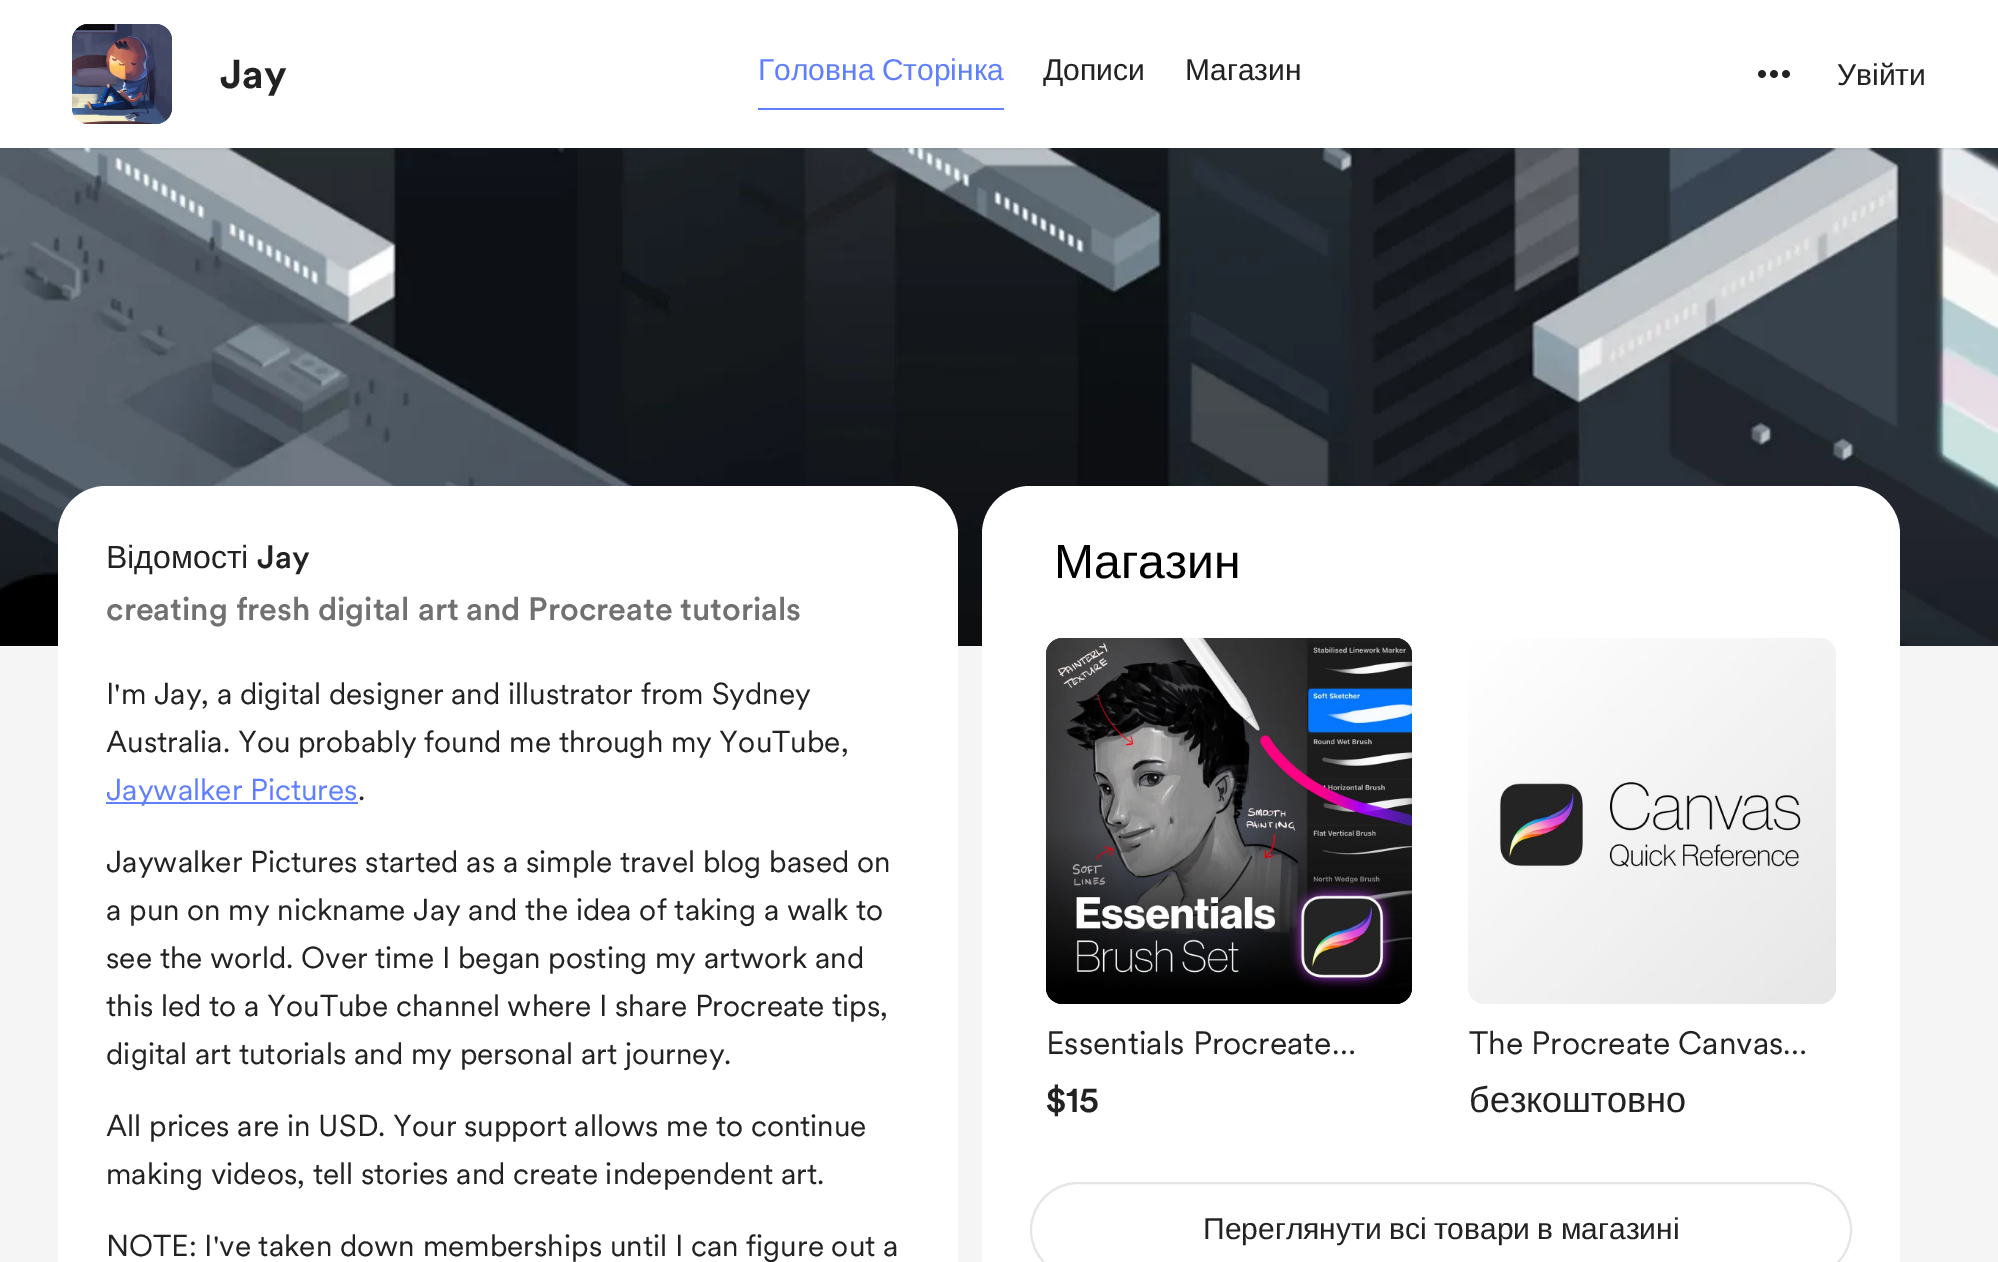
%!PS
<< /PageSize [1998 1262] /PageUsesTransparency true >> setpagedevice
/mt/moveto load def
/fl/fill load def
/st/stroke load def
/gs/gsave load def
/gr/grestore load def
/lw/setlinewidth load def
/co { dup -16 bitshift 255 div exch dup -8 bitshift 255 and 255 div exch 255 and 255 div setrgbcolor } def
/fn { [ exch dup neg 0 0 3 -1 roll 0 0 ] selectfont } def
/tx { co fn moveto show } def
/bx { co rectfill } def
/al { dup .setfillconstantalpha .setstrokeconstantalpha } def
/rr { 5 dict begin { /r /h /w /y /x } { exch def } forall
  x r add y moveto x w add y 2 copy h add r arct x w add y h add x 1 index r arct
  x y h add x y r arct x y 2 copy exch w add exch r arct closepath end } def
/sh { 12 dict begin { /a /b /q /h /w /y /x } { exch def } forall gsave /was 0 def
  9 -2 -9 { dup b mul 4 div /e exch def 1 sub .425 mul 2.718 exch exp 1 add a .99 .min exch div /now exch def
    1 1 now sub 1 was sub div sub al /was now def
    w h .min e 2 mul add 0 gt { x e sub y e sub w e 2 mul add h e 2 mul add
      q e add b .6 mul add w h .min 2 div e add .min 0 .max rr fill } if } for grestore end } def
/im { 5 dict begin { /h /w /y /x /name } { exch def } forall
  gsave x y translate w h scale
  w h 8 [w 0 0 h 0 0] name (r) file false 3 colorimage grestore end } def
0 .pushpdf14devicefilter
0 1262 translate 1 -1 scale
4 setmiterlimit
0 0 1998 1262 16#FFFFFF bx
(media/4.raw) 0 148 1998 498 im
gs
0 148 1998 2 rectclip
16#000000 co
0 2 1998 148 0 1 .06 sh
gr
(media/1.raw) 72 24 100 100 im
(media/2.raw) 72 24 100 100 im
758 108 246 2 16#5F7FFF bx
(media/3.raw) 1758 70 32 8 im
0 646 1998 616 16#F5F5F5 bx
16#FFFFFF co
58 486 900 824 48 rr fl
106 802 252 2 16#5F7FFF bx
16#FFFFFF co
982 486 918 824 48 rr fl
(media/5.raw) 1046 638 366 366 im
(media/6.raw) 1046 638 366 366 im
(media/7.raw) 1468 638 368 366 im
(media/8.raw) 1823 990 13 14 im
16#E5E5E5 co
2 lw
1031 1183 820 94 47 rr st
(Jay) 220 88 /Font-Bold 40 16#222222 tx
/LiberationSans-Regular 30 fn
16#5F7FFF co
758 80 mt -1 0 32 (Головна Сторінка) widthshow
(Дописи) 1043 80 /LiberationSans-Regular 30 16#222222 tx
(Магазин) 1185 80 /LiberationSans-Regular 30 16#222222 tx
(Увійти) 1837 85 /LiberationSans-Regular 30 16#222222 tx
(Відомості) 106 568 /LiberationSans-Regular 32 16#222222 tx
(Jay) 257 568 /Font-Medium 32 16#222222 tx
(creating fresh digital art and Procreate tutorials) 106 620 /Font-Medium 32 16#717171 tx
(I'm Jay, a digital designer and illustrator from Sydney) 106 704 /Font-Regular 30 16#222222 tx
(Australia. You probably found me through my YouTube,) 106 752 /Font-Regular 30 16#222222 tx
(Jaywalker Pictures) 106 800 /Font-Regular 30 16#5F7FFF tx
(.) 358 800 /Font-Regular 30 16#222222 tx
(Jaywalker Pictures started as a simple travel blog based on) 106 872 /Font-Regular 30 16#222222 tx
(a pun on my nickname Jay and the idea of taking a walk to) 106 920 /Font-Regular 30 16#222222 tx
(see the world. Over time I began posting my artwork and) 106 968 /Font-Regular 30 16#222222 tx
(this led to a YouTube channel where I share Procreate tips,) 106 1016 /Font-Regular 30 16#222222 tx
(digital art tutorials and my personal art journey.) 106 1064 /Font-Regular 30 16#222222 tx
(All prices are in USD. Your support allows me to continue) 106 1136 /Font-Regular 30 16#222222 tx
(making videos, tell stories and create independent art.) 106 1184 /Font-Regular 30 16#222222 tx
(NOTE: I've taken down memberships until I can figure out a) 106 1256 /Font-Regular 30 16#222222 tx
(Магазин) 1054 578 /LiberationSans-Regular 48 16#000000 tx
(Essentials Procreate…) 1046 1054 /Font-Regular 32 16#222222 tx
($15) 1046 1112 /Font-Medium 36 16#222222 tx
(The Procreate Canvas…) 1469 1054 /Font-Regular 32 16#222222 tx
(безкоштовно) 1469 1112 /LiberationSans-Regular 36 16#222222 tx
/LiberationSans-Regular 30 fn
1203 1239 mt -1 0 32 (Переглянути всі товари в магазині) widthshow
.poppdf14devicefilter showpage
